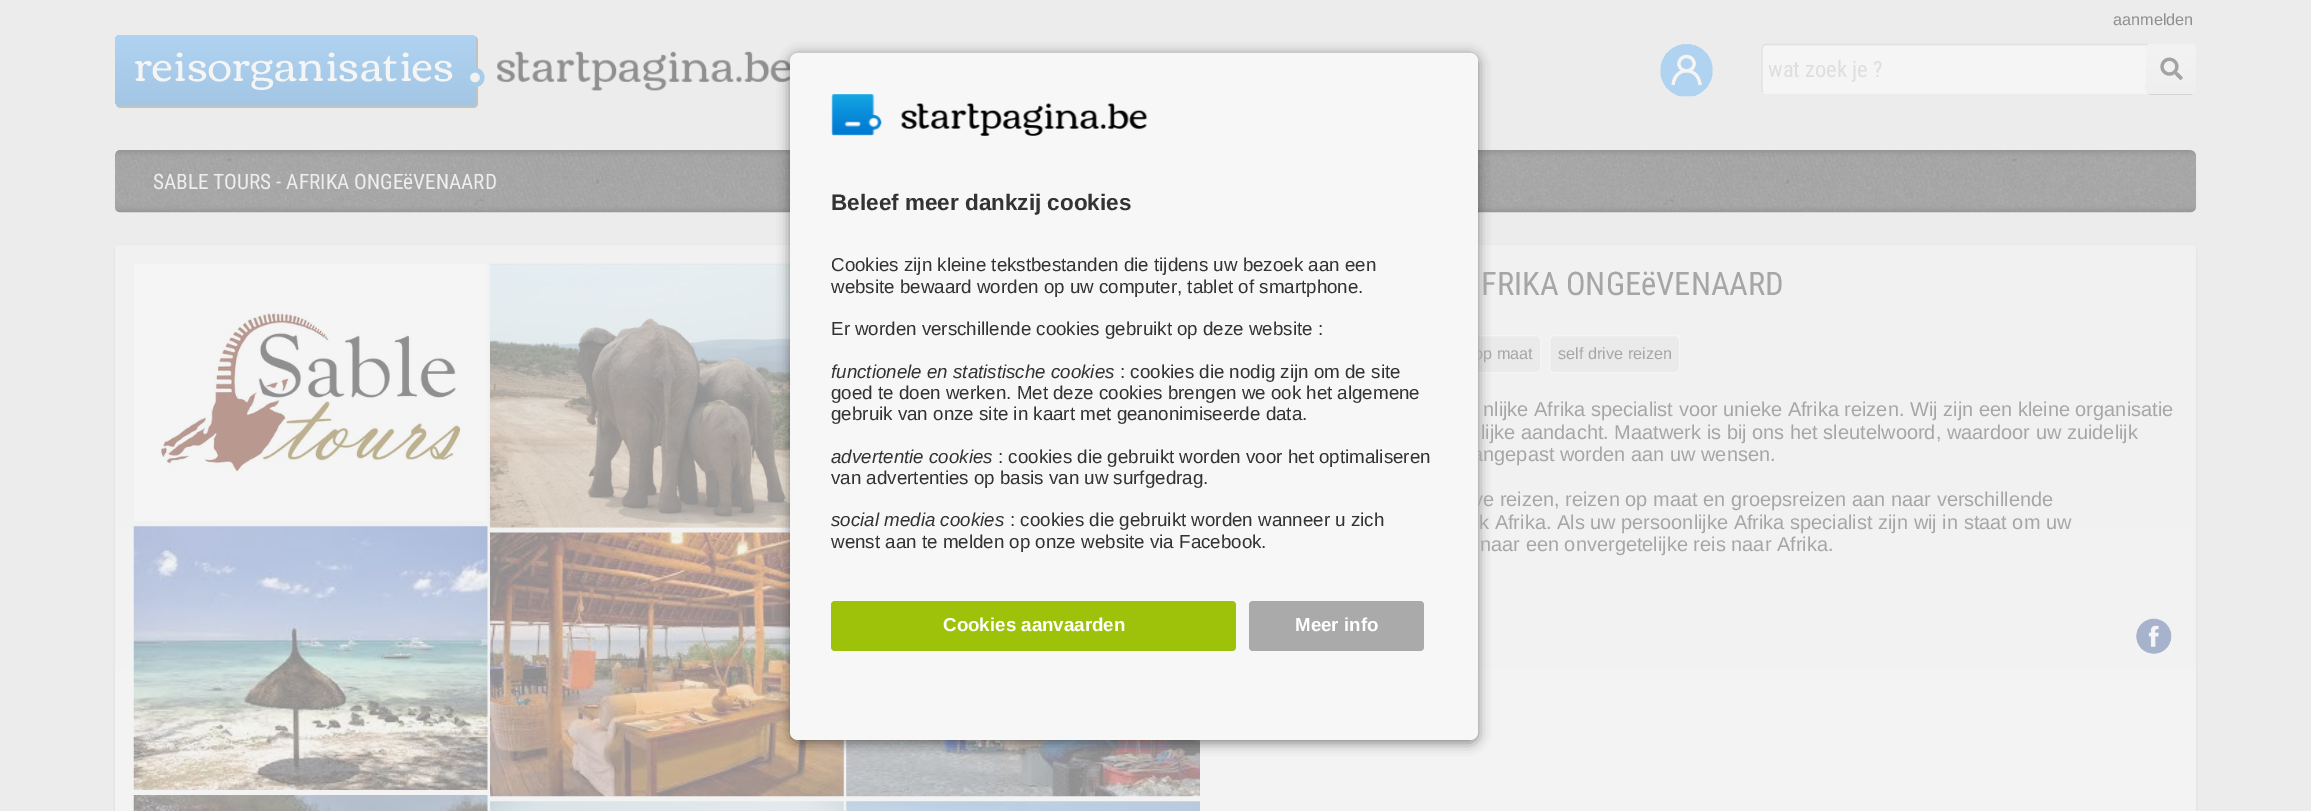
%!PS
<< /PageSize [2311 811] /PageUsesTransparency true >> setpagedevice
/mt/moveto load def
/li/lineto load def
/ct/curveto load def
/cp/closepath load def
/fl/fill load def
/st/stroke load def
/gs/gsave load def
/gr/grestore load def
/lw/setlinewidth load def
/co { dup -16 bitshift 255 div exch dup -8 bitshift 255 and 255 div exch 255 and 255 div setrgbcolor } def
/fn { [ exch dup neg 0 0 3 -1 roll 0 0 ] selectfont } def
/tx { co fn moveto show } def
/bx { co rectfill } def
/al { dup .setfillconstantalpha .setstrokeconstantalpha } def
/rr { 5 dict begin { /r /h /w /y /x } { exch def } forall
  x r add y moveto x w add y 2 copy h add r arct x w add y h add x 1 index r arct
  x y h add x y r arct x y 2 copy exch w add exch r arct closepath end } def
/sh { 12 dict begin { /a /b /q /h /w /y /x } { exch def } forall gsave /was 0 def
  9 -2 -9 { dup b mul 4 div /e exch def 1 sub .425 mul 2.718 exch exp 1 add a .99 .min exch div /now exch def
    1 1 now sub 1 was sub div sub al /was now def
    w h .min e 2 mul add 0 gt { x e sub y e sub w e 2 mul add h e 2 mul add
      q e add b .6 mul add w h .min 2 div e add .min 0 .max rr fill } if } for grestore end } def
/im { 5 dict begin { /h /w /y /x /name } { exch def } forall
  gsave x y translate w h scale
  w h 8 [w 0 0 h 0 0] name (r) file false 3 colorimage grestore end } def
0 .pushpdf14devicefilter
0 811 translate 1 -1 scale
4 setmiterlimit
0 0 2311 811 16#ECECEC bx
16#C2C2C2 co
116 105 mt 117 107 119 108 121 108 ct 473 108 li 476 108 478 106 478 103 ct 478 41 li 478 39 477 37 475 36 ct 476 37 476 39 476 40 ct 476 101 li 476 104 474 106 471 106 ct 120 106 li 119 106 117 106 116 105 ct cp fl
gs 115 35 361 71 5 rr clip newpath
<< /ShadingType 2 /ColorSpace /DeviceRGB /Coords [296 35 296 106] /Extend [true true] /Function << /FunctionType 2 /Domain [0 1] /C0 [.686 .827 .941] /C1 [.635 .776 .894] /N 1 >> >> shfill gr
16#A7CCE9 co
475 68 mt 462.5 68 462.5 87 475 87 ct 487.5 87 487.5 68 475 68 ct cp fl
(media/1.raw) 470 72 10 11 im
(media/2.raw) 497 51 293 40 im
(media/3.raw) 1660 44 53 53 im
16#F5F5F5 co
1761 44 390 50 5 rr fl
1.2 lw
2149.5 45.5 mt 2151.5 48 2150.5 53 2150.5 55.5 ct 2150.5 82 li 2150.5 85.5 2152 93 2146 93 ct 1766 93 li 1763 92 li st
16#E0E0E0 co
1763 92 mt 1761 89.5 1762 84.5 1762 82 ct 1762 55.5 li 1762 52 1760.5 44.5 1766 44.5 ct 2146 44.5 li 2149.5 45.5 li st
0.27 al
16#8F8F8F co
2146 49 mt 2146 83 li 2146 87 2145 94 2151 95 ct 2190 95 li 2193 95 2196 92 2196 89 ct 2194 95 2188 94 2184 94 ct 2159 94 li 2155 94 2150 95 2147 91 ct 2146 89 li cp fl
1 al
gs 2146 44 50 50 6 rr clip newpath
<< /ShadingType 2 /ColorSpace /DeviceRGB /Coords [2171 44 2171 94] /Extend [true true] /Function << /FunctionType 2 /Domain [0 1] /C0 [.953 .953 .953] /C1 [.937 .937 .937] /N 1 >> >> shfill gr
(media/4.raw) 2160 57 23 23 im
(media/5.raw) 115 150 2082 63 im
115 246 2081 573 5 1 .27 sh
gs 115 245 2081 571 5 rr clip newpath
<< /ShadingType 2 /ColorSpace /DeviceRGB /Coords [1156 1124 1156 245] /Extend [true true] /Function << /FunctionType 2 /Domain [0 1] /C0 [.961 .961 .961] /C1 [.945 .945 .945] /N 1 >> >> shfill gr
(media/9.raw) 490 263 300 265 im
(media/11.raw) 490 532 354 265 im
(media/12.raw) 846 740 354 57 im
16#EAEAEA co
1416.5 335.5 124 37 4.5 rr gs fl gr
16#F5F5F5 co
1 lw
st
16#000000 co
790 55 688 688 8 6 .45 sh
(media/8.raw) 134 264 354 257 im
(media/10.raw) 133 526 355 264 im
(media/13.raw) 133 795 355 16 im
(media/14.raw) 490 801 354 10 im
(media/15.raw) 846 801 354 10 im
16#EAEAEA co
1549.5 335.5 130 37 4.5 rr gs fl gr
16#F5F5F5 co
st
(media/16.raw) 2136 618 36 36 im
(aanmelden) 2113 25 /LiberationSans-Regular 16.25 16#8F8F8F tx
(reisorganisaties) 134 81 /Corben-Regular 42.5 16#F5F5F5 tx
(wat zoek je ?) 1768 77 /RobotoCondensed-Regular 22.5 16#DEDEDE tx
(SABLE TOURS - AFRIKA ONGEëVENAARD) 153 189 /RobotoCondensed-Regular 21.25 16#EEEEEE tx
(FRIKA ONGEëVENAARD) 1481 295 /RobotoCondensed-Regular 32.5 16#A6A6A6 tx
(op maat) 1474 359 /LiberationSans-Regular 16.25 16#A6A6A6 tx
(self drive reizen) 1558 359 /LiberationSans-Regular 16.25 16#A6A6A6 tx
(nlijke Afrika specialist voor unieke Afrika reizen. Wij zijn een kleine organisatie) 1483 416 /LiberationSans-Regular 20 16#A6A6A6 tx
(lijke aandacht. Maatwerk is bij ons het sleutelwoord, waardoor uw zuidelijk) 1481 439 /LiberationSans-Regular 20 16#A6A6A6 tx
(angepast worden aan uw wensen.) 1472 461 /LiberationSans-Regular 20 16#A6A6A6 tx
(ve reizen, reizen op maat en groepsreizen aan naar verschillende) 1473 506 /LiberationSans-Regular 20 16#A6A6A6 tx
16#F7F7F7 co
790 53 688 687 8 rr fl
(wenst aan te melden op onze website via Facebook.) 831 548 /LiberationSans-Regular 18.75 16#333333 tx
(: cookies die gebruikt worden wanneer u zich) 1010 526 /LiberationSans-Regular 18.75 16#333333 tx
(social media cookies) 831 526 /LiberationSans-Italic 18.75 16#333333 tx
(van advertenties op basis van uw surfgedrag.) 831 484 /LiberationSans-Regular 18.75 16#333333 tx
(: cookies die gebruikt worden voor het optimaliseren) 998 463 /LiberationSans-Regular 18.75 16#333333 tx
(advertentie cookies) 831 463 /LiberationSans-Italic 18.75 16#333333 tx
(gebruik van onze site in kaart met geanonimiseerde data.) 831 420 /LiberationSans-Regular 18.75 16#333333 tx
(goed te doen werken. Met deze cookies brengen we ook het algemene) 831 399 /LiberationSans-Regular 18.75 16#333333 tx
(: cookies die nodig zijn om de site) 1120 378 /LiberationSans-Regular 18.75 16#333333 tx
(functionele en statistische cookies) 831 378 /LiberationSans-Italic 18.75 16#333333 tx
(Er worden verschillende cookies gebruikt op deze website :) 831 335 /LiberationSans-Regular 18.75 16#333333 tx
(website bewaard worden op uw computer, tablet of smartphone.) 831 293 /LiberationSans-Regular 18.75 16#333333 tx
(Cookies zijn kleine tekstbestanden die tijdens uw bezoek aan een) 831 271 /LiberationSans-Regular 18.75 16#333333 tx
(Beleef meer dankzij cookies) 831 210 /LiberationSans-Bold 22.5 16#333333 tx
(media/7.raw) 901 103 247 33 im
16#AAAAAA co
1249 601 175 50 4 rr fl
(Meer info) 1295 631 /LiberationSans-Bold 18.75 16#FFFFFF tx
16#9DC209 co
831 601 405 50 4 rr fl
(Cookies aanvaarden) 943 631 /LiberationSans-Bold 18.75 16#FFFFFF tx
(media/6.raw) 831 94 51 42 im
(k Afrika. Als uw persoonlijke Afrika specialist zijn wij in staat om uw) 1479 529 /LiberationSans-Regular 20 16#A6A6A6 tx
(naar een onvergetelijke reis naar Afrika.) 1480 551 /LiberationSans-Regular 20 16#A6A6A6 tx
.poppdf14devicefilter showpage
